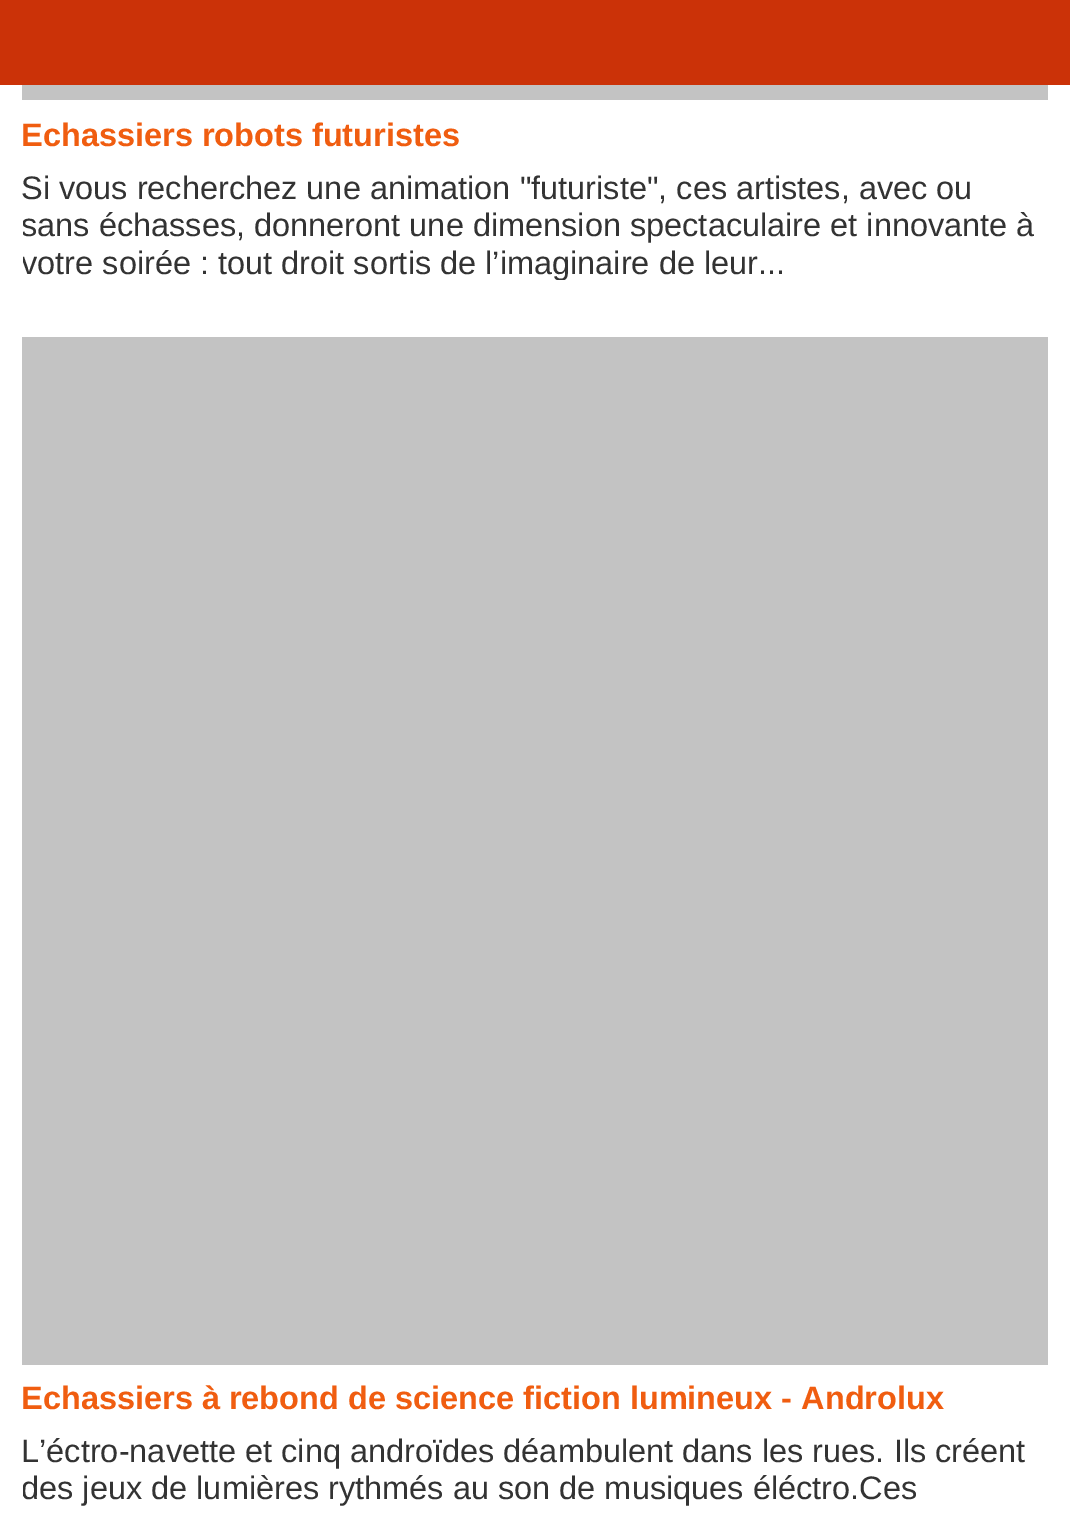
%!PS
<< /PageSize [1070 1518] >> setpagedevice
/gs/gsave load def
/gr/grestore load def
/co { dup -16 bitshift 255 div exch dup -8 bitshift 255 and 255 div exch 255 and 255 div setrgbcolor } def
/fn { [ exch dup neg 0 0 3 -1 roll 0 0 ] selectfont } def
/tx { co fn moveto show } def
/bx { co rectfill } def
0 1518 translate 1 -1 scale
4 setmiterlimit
0 0 1070 1518 16#FFFFFF bx
0 0 1070 85 16#CB3208 bx
22 85 1026 15 16#C3C3C3 bx
22 337 1026 1028 16#C3C3C3 bx
(Echassiers robots futuristes) 21 146 /LiberationSans-Bold 32.5 16#F05D10 tx
(Si vous recherchez une animation "futuriste", ces artistes, avec ou) 21 199 /LiberationSans-Regular 32.5 16#333333 tx
gs
23 168 1025 112 rectclip
(sans échasses, donneront une dimension spectaculaire et innovante à) 21 236 /LiberationSans-Regular 32.5 16#333333 tx
(votre soirée : tout droit sortis de l’imaginaire de leur...) 21 274 /LiberationSans-Regular 32.5 16#333333 tx
gr
(Echassiers à rebond de science fiction lumineux - Androlux) 21 1409 /LiberationSans-Bold 32.5 16#F05D10 tx
(L’éctro-navette et cinq androïdes déambulent dans les rues. Ils créent) 21 1462 /LiberationSans-Regular 32.5 16#333333 tx
gs
23 1433 1025 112 rectclip
(des jeux de lumières rythmés au son de musiques éléctro.Ces) 21 1499 /LiberationSans-Regular 32.5 16#333333 tx
gr
showpage
